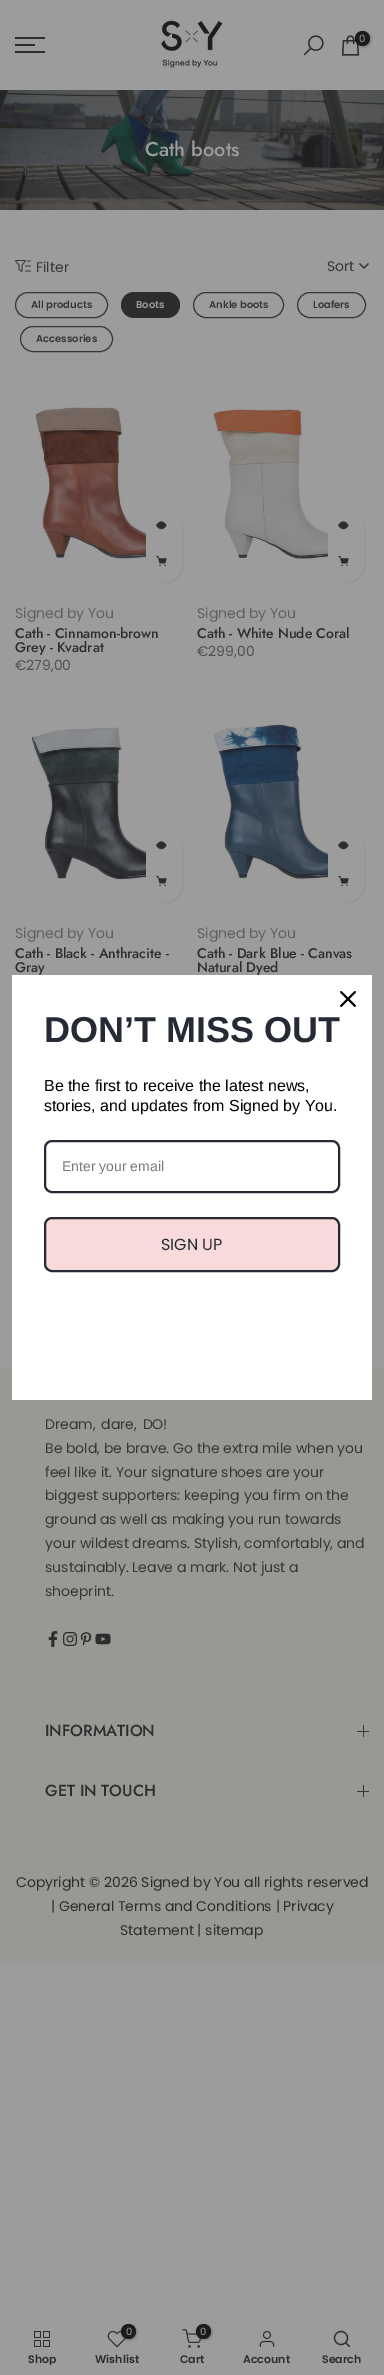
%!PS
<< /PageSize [384 2375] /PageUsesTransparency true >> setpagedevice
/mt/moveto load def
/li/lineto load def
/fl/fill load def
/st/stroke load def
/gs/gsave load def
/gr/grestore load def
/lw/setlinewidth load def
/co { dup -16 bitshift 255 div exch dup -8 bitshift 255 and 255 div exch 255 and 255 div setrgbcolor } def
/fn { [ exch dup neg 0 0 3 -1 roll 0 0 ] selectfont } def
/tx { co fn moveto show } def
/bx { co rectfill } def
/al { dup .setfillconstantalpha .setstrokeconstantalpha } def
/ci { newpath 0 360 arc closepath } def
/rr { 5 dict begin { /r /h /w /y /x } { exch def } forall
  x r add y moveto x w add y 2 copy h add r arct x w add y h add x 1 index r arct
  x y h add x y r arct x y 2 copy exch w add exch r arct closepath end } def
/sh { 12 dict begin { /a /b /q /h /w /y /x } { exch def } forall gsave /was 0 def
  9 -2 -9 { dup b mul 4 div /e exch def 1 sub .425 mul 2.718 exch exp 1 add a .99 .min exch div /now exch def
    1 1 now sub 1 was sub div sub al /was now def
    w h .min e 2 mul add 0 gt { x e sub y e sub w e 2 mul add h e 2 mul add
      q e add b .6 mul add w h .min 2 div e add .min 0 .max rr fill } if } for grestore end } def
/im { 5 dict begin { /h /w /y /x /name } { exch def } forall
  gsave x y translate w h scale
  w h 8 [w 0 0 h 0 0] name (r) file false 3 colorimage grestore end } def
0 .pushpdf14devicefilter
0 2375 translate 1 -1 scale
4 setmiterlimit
0 0 384 2375 16#9C9C9C bx
15 37 30 2 16#2D2D2D bx
15 44 20 2 16#2D2D2D bx
15 51 30 2 16#2D2D2D bx
(media/1.raw) 161 20 62 48 im
(media/2.raw) 303 35 21 21 im
(media/3.raw) 341 35 19 21 im
16#1C1C1C co
356 32 15 15 7.5 1.5 .3 sh
362.5 38.5 7.5 ci fl
(media/4.raw) 0 90 384 120 im
(media/5.raw) 15 260 16 12 im
16#363636 co
1.1 lw
2 setlinecap
368 264 mt 364 268 li 360 264 li st
1 lw
0 setlinecap
15.5 292.5 92 25 12.5 rr st
16#2D2D2D co
121 292 59 26 13 rr fl
16#363636 co
193.5 292.5 90 25 12.5 rr st
297.5 292.5 68 25 12.5 rr st
20.5 326.5 92 25 12.5 rr st
(media/6.raw) 35 406 137 153 im
16#1C1C1C co
147 511 36 72 18 .5 .1 sh
16#9C9C9C co
146 510 36 72 18 rr fl
164 528 18 ci fl
(media/7.raw) 156 521 11 9 im
164 564 18 ci fl
(media/8.raw) 156 556 11 10 im
(media/9.raw) 212 409 142 151 im
16#1C1C1C co
329 511 36 72 18 .5 .1 sh
16#9C9C9C co
328 510 36 72 18 rr fl
346 528 18 ci fl
(media/7.raw) 338 521 11 9 im
346 564 18 ci fl
(media/8.raw) 338 556 11 10 im
(media/10.raw) 31 727 143 154 im
16#1C1C1C co
147 831 36 72 18 .5 .1 sh
16#9C9C9C co
146 830 36 72 18 rr fl
164 848 18 ci fl
(media/7.raw) 156 841 11 9 im
164 884 18 ci fl
(media/8.raw) 156 876 11 10 im
(media/11.raw) 213 723 141 157 im
16#1C1C1C co
329 831 36 72 18 .5 .1 sh
16#9C9C9C co
328 830 36 72 18 rr fl
346 848 18 ci fl
(media/7.raw) 338 841 11 9 im
346 884 18 ci fl
(media/8.raw) 338 876 11 10 im
0 1368 384 595 16#999895 bx
(media/12.raw) 48 1631 10 16 im
(media/13.raw) 63 1632 14 14 im
(media/14.raw) 80 1632 12 14 im
(media/15.raw) 95 1633 16 12 im
363 1725 1 12 16#363636 bx
357 1731 12 1 16#363636 bx
363 1785 1 12 16#363636 bx
357 1791 12 1 16#363636 bx
(media/17.raw) 34 2331 16 16 im
(media/18.raw) 107 2330 19 18 im
16#1C1C1C co
122 2325 15 15 7.5 1.5 .3 sh
128.5 2331.5 7.5 ci fl
(media/19.raw) 182 2329 19 19 im
197 2325 15 15 7.5 1.5 .3 sh
203.5 2331.5 7.5 ci fl
(media/20.raw) 259 2330 16 18 im
16#2D2D2D co
1.2 lw
341 2338 6.5 ci st
1 setlinecap
1 setlinejoin
349.5 2346.5 mt 346 2343 li st
(0) 359 42 /Poppins-Regular 10 16#9C9C9C tx
(Cath boots) 145 156 /Jost-Medium 20 16#9C9C9C tx
(Filter) 36 272 /Poppins-Regular 14 16#363636 tx
(Sort) 327 271 /Poppins-Regular 14 16#363636 tx
(All products) 31 308 /Poppins-SemiBold 10 16#363636 tx
(Boots) 136 308 /Poppins-SemiBold 10 16#9C9C9C tx
(Ankle boots) 209 308 /Poppins-SemiBold 10 16#363636 tx
(Loafers) 313 308 /Poppins-SemiBold 10 16#363636 tx
(Accessories) 36 342 /Poppins-SemiBold 10 16#363636 tx
(Signed by You) 15 618 /Poppins-Regular 14 16#606060 tx
(Cath - Cinnamon-brown) 15 638 /Jost-Medium 14 16#2D2D2D tx
(Grey - Kvadrat) 15 652 /Jost-Medium 14 16#2D2D2D tx
(€279,00) 15 670 /Poppins-Regular 14 16#515151 tx
(Signed by You) 197 618 /Poppins-Regular 14 16#606060 tx
(Cath - White Nude Coral) 197 638 /Jost-Medium 14 16#2D2D2D tx
(€299,00) 197 656 /Poppins-Regular 14 16#515151 tx
(Signed by You) 15 938 /Poppins-Regular 14 16#606060 tx
(Cath - Black - Anthracite -) 15 958 /Jost-Medium 14 16#2D2D2D tx
(Gray) 15 972 /Jost-Medium 14 16#2D2D2D tx
(Signed by You) 197 938 /Poppins-Regular 14 16#606060 tx
(Cath - Dark Blue - Canvas) 197 958 /Jost-Medium 14 16#2D2D2D tx
(Natural Dyed) 197 972 /Jost-Medium 14 16#2D2D2D tx
/Poppins-Regular 14 fn
16#363636 co
45 1429 mt 2 0 32 (Dream, dare, DO!) widthshow
(Be bold, be brave. Go the extra mile when you) 45 1453 /Poppins-Regular 14 16#363636 tx
(feel like it. Your signature shoes are your) 45 1477 /Poppins-Regular 14 16#363636 tx
(biggest supporters: keeping you firm on the) 45 1500 /Poppins-Regular 14 16#363636 tx
(ground as well as making you run towards) 45 1524 /Poppins-Regular 14 16#363636 tx
(your wildest dreams. Stylish, comfortably, and) 45 1548 /Poppins-Regular 14 16#363636 tx
(sustainably. Leave a mark. Not just a) 45 1572 /Poppins-Regular 14 16#363636 tx
(shoeprint.) 45 1596 /Poppins-Regular 14 16#363636 tx
(INFORMATION) 45 1736 /Jost-Medium 16 16#2D2D2D tx
(GET IN TOUCH) 45 1796 /Jost-Medium 16 16#2D2D2D tx
(Copyright © 2026 Signed by You all rights reserved) 16 1887 /Poppins-Regular 14 16#2D2D2D tx
(| General Terms and Conditions | Privacy) 51 1911 /Poppins-Regular 14 16#2D2D2D tx
(Statement | sitemap) 120 1935 /Poppins-Regular 14 16#2D2D2D tx
12 975 360 425 16#FFFFFF bx
(media/16.raw) 340 991 16 16 im
(DON’T MISS OUT) 44 1042 /LiberationSans-Bold 36 16#262A35 tx
(Be the first to receive the latest news,) 44 1091 /LiberationSans-Regular 16 16#000000 tx
(stories, and updates from Signed by You.) 44 1111 /LiberationSans-Regular 16 16#000000 tx
16#262A35 co
2 lw
0 setlinecap
0 setlinejoin
45 1141 294 51 7 rr st
(Enter your email) 62 1171 /LiberationSans-Regular 14 16#797979 tx
16#F8DADA co
45 1218 294 53 7 rr gs fl gr
16#262A35 co
st
(SIGN UP) 161 1250 /Poppins-Regular 16 16#262A35 tx
gs
15 2354 55 11 rectclip
(Shop) 28 2363 /Poppins-SemiBold 11 16#2D2D2D tx
gr
(0) 126 2335 /Poppins-Regular 10 16#9C9C9C tx
(Wishlist) 95 2363 /Poppins-SemiBold 11 16#2D2D2D tx
(0) 200 2335 /Poppins-Regular 10 16#9C9C9C tx
(Cart) 180 2363 /Poppins-SemiBold 11 16#2D2D2D tx
(Account) 243 2363 /Poppins-SemiBold 11 16#2D2D2D tx
(Search) 322 2363 /Poppins-SemiBold 11 16#2D2D2D tx
.poppdf14devicefilter showpage
